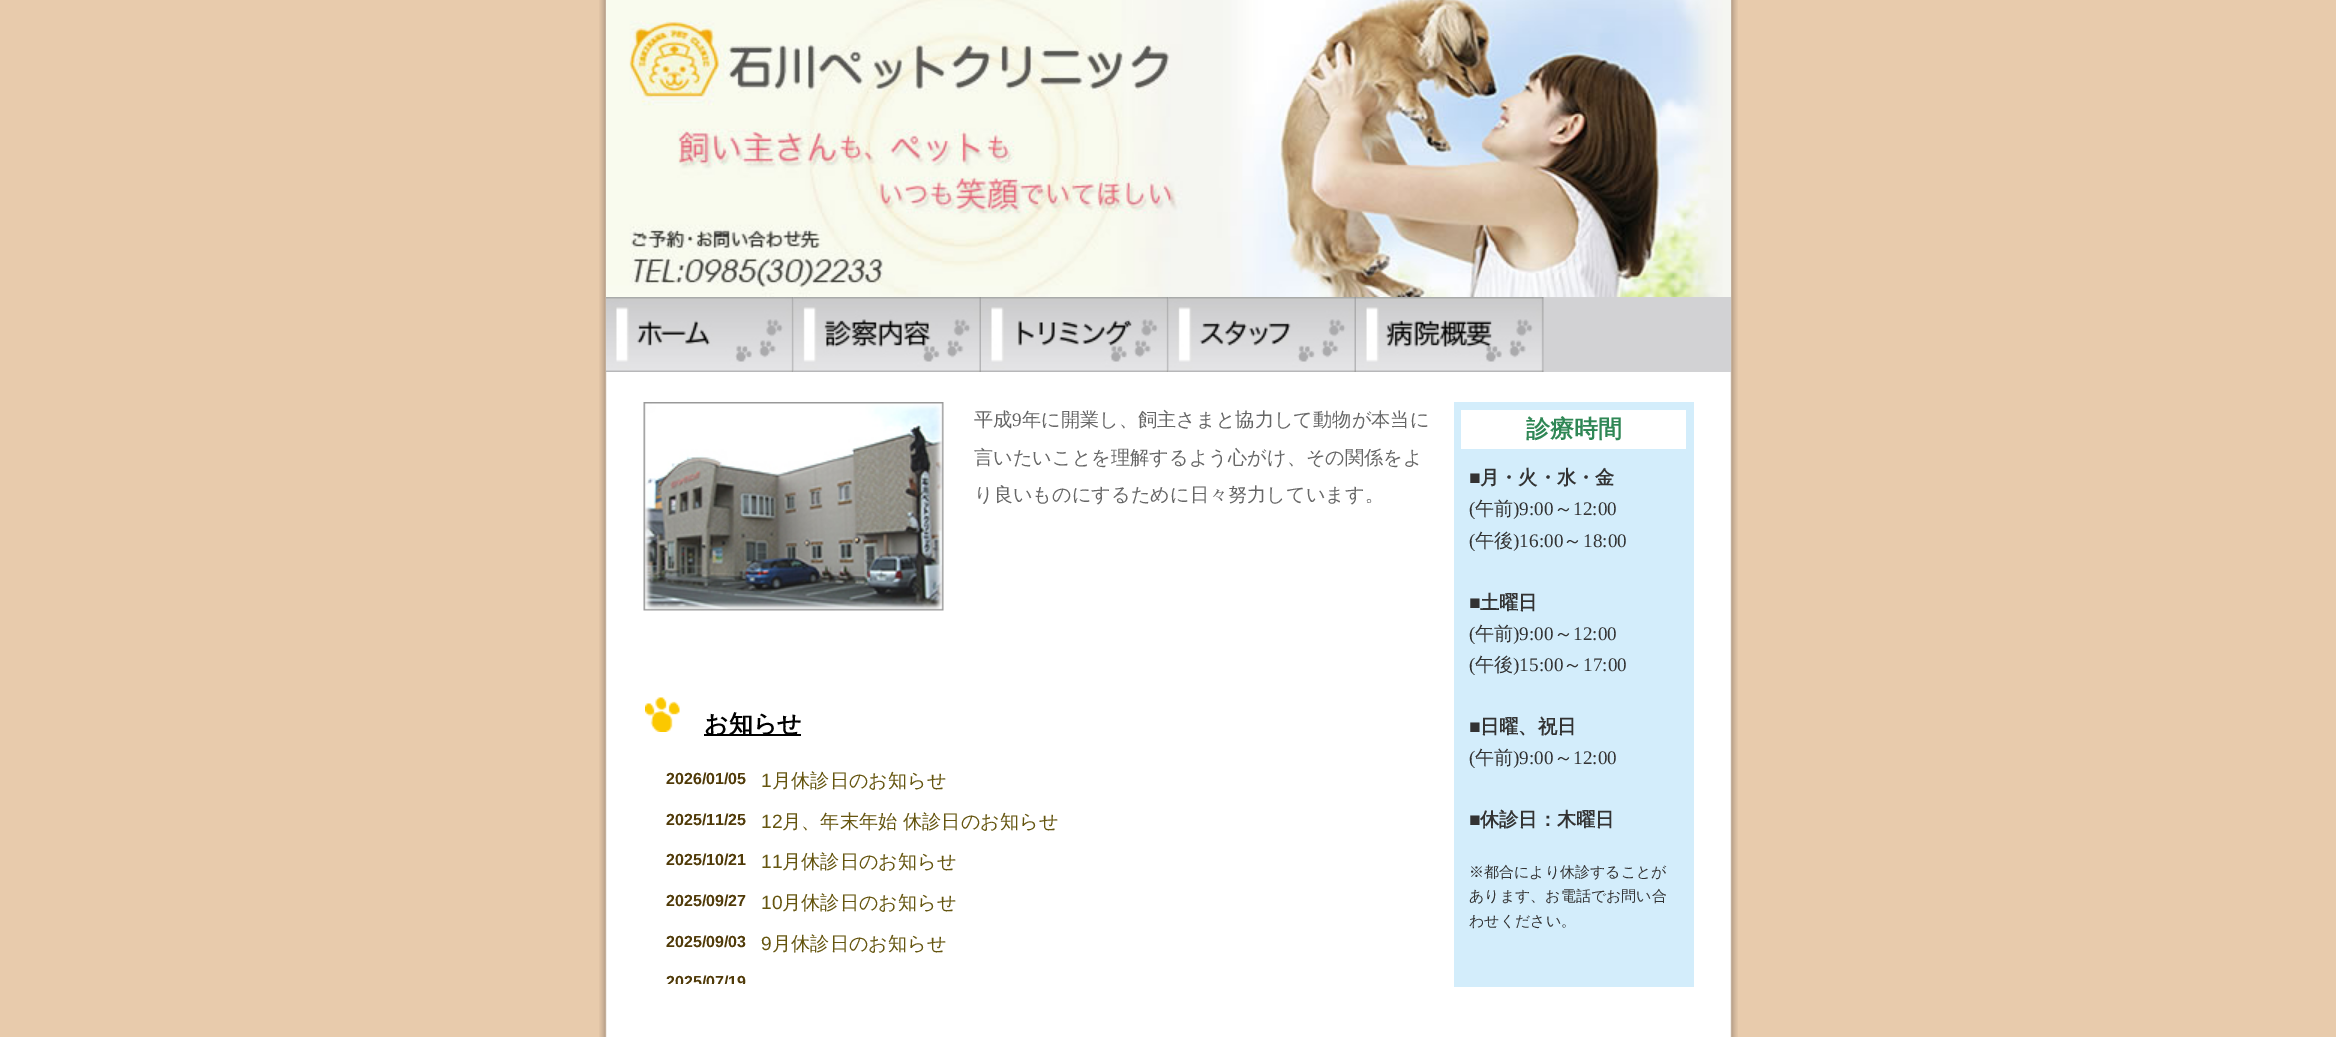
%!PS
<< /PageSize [2336 1037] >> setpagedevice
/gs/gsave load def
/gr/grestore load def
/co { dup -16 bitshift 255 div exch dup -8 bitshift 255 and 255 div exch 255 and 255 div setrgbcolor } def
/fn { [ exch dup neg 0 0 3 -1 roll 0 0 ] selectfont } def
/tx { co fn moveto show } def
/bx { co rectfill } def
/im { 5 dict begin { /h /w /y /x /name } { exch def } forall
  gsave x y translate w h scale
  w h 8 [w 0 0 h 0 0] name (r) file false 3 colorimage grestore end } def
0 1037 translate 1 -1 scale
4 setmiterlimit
0 0 2336 1037 16#E8CBAC bx
(media/1.raw) 599 0 1139 1037 im
(media/2.raw) 606 0 1125 297 im
793 297 938 75 16#D2D2D4 bx
(media/3.raw) 606 297 188 75 im
(media/4.raw) 793 297 188 75 im
(media/5.raw) 981 297 188 75 im
(media/6.raw) 1168 297 188 75 im
(media/7.raw) 1356 297 188 75 im
(media/8.raw) 643 402 301 209 im
(media/9.raw) 645 697 35 35 im
704 734 97 2 16#000000 bx
1454 402 240 585 16#D3EDFB bx
1461 410 225 39 16#FFFFFF bx
(平成) 974 426 /WenQuanYiZenHei-Medium 19.2 16#666666 tx
(9) 1012 426 /LiberationSerif-Regular 19.2 16#666666 tx
(年に開業し、飼主さまと協力して動物が本当に) 1022 426 /WenQuanYiZenHei-Medium 19.2 16#666666 tx
(言いたいことを理解するよう心がけ、その関係をよ) 974 464 /WenQuanYiZenHei-Medium 19.2 16#666666 tx
(り良いものにするために日々努力しています。) 974 501 /WenQuanYiZenHei-Medium 19.2 16#666666 tx
(お知らせ) 704 732 /WenQuanYiZenHei-Bold 24 16#000000 tx
(2026/01/05) 666 784 /LiberationSans-Bold 16 16#503A08 tx
(1) 761 787 /LiberationSans-Regular 19.2 16#65550F tx
(月休診日のお知らせ) 772 787 /WenQuanYiZenHei-Medium 19.2 16#65550F tx
(2025/11/25) 666 825 /LiberationSans-Bold 16 16#503A08 tx
(12) 761 828 /LiberationSans-Regular 19.2 16#65550F tx
(月、年末年始 休診日のお知らせ) 782 828 /WenQuanYiZenHei-Medium 19.2 16#65550F tx
(2025/10/21) 666 865 /LiberationSans-Bold 16 16#503A08 tx
(11) 761 868 /LiberationSans-Regular 19.2 16#65550F tx
(月休診日のお知らせ) 782 868 /WenQuanYiZenHei-Medium 19.2 16#65550F tx
(2025/09/27) 666 906 /LiberationSans-Bold 16 16#503A08 tx
(10) 761 909 /LiberationSans-Regular 19.2 16#65550F tx
(月休診日のお知らせ) 782 909 /WenQuanYiZenHei-Medium 19.2 16#65550F tx
(2025/09/03) 666 947 /LiberationSans-Bold 16 16#503A08 tx
(9) 761 950 /LiberationSans-Regular 19.2 16#65550F tx
(月休診日のお知らせ) 772 950 /WenQuanYiZenHei-Medium 19.2 16#65550F tx
gs
666 759 750 225 rectclip
(2025/07/19) 666 987 /LiberationSans-Bold 16 16#503A08 tx
gr
(診療時間) 1526 437 /WenQuanYiZenHei-Bold 24 16#2F8755 tx
(■) 1469 484 /LiberationSerif-Bold 19.2 16#333333 tx
(月・火・水・金) 1480 484 /WenQuanYiZenHei-Bold 19.2 16#333333 tx
(\() 1469 515 /LiberationSerif-Regular 19.2 16#333333 tx
(午前) 1475 515 /WenQuanYiZenHei-Medium 19.2 16#333333 tx
(\)9:00) 1513 515 /LiberationSerif-Regular 19.2 16#333333 tx
(～) 1554 515 /WenQuanYiZenHei-Medium 19.2 16#333333 tx
(12:00) 1573 515 /LiberationSerif-Regular 19.2 16#333333 tx
(\() 1469 547 /LiberationSerif-Regular 19.2 16#333333 tx
(午後) 1475 547 /WenQuanYiZenHei-Medium 19.2 16#333333 tx
(\)16:00) 1513 547 /LiberationSerif-Regular 19.2 16#333333 tx
(～) 1563 547 /WenQuanYiZenHei-Medium 19.2 16#333333 tx
(18:00) 1583 547 /LiberationSerif-Regular 19.2 16#333333 tx
(■) 1469 609 /LiberationSerif-Bold 19.2 16#333333 tx
(土曜日) 1480 609 /WenQuanYiZenHei-Bold 19.2 16#333333 tx
(\() 1469 640 /LiberationSerif-Regular 19.2 16#333333 tx
(午前) 1475 640 /WenQuanYiZenHei-Medium 19.2 16#333333 tx
(\)9:00) 1513 640 /LiberationSerif-Regular 19.2 16#333333 tx
(～) 1554 640 /WenQuanYiZenHei-Medium 19.2 16#333333 tx
(12:00) 1573 640 /LiberationSerif-Regular 19.2 16#333333 tx
(\() 1469 671 /LiberationSerif-Regular 19.2 16#333333 tx
(午後) 1475 671 /WenQuanYiZenHei-Medium 19.2 16#333333 tx
(\)15:00) 1513 671 /LiberationSerif-Regular 19.2 16#333333 tx
(～) 1563 671 /WenQuanYiZenHei-Medium 19.2 16#333333 tx
(17:00) 1583 671 /LiberationSerif-Regular 19.2 16#333333 tx
(■) 1469 733 /LiberationSerif-Bold 19.2 16#333333 tx
(日曜、祝日) 1480 733 /WenQuanYiZenHei-Bold 19.2 16#333333 tx
(\() 1469 764 /LiberationSerif-Regular 19.2 16#333333 tx
(午前) 1475 764 /WenQuanYiZenHei-Medium 19.2 16#333333 tx
(\)9:00) 1513 764 /LiberationSerif-Regular 19.2 16#333333 tx
(～) 1554 764 /WenQuanYiZenHei-Medium 19.2 16#333333 tx
(12:00) 1573 764 /LiberationSerif-Regular 19.2 16#333333 tx
(■) 1469 826 /LiberationSerif-Bold 19.2 16#333333 tx
(休診日：木曜日) 1480 826 /WenQuanYiZenHei-Bold 19.2 16#333333 tx
(※都合により休診することが) 1469 877 /WenQuanYiZenHei-Medium 15 16#333333 tx
(あります、お電話でお問い合) 1469 901 /WenQuanYiZenHei-Medium 15 16#333333 tx
(わせください。) 1469 926 /WenQuanYiZenHei-Medium 15 16#333333 tx
showpage
